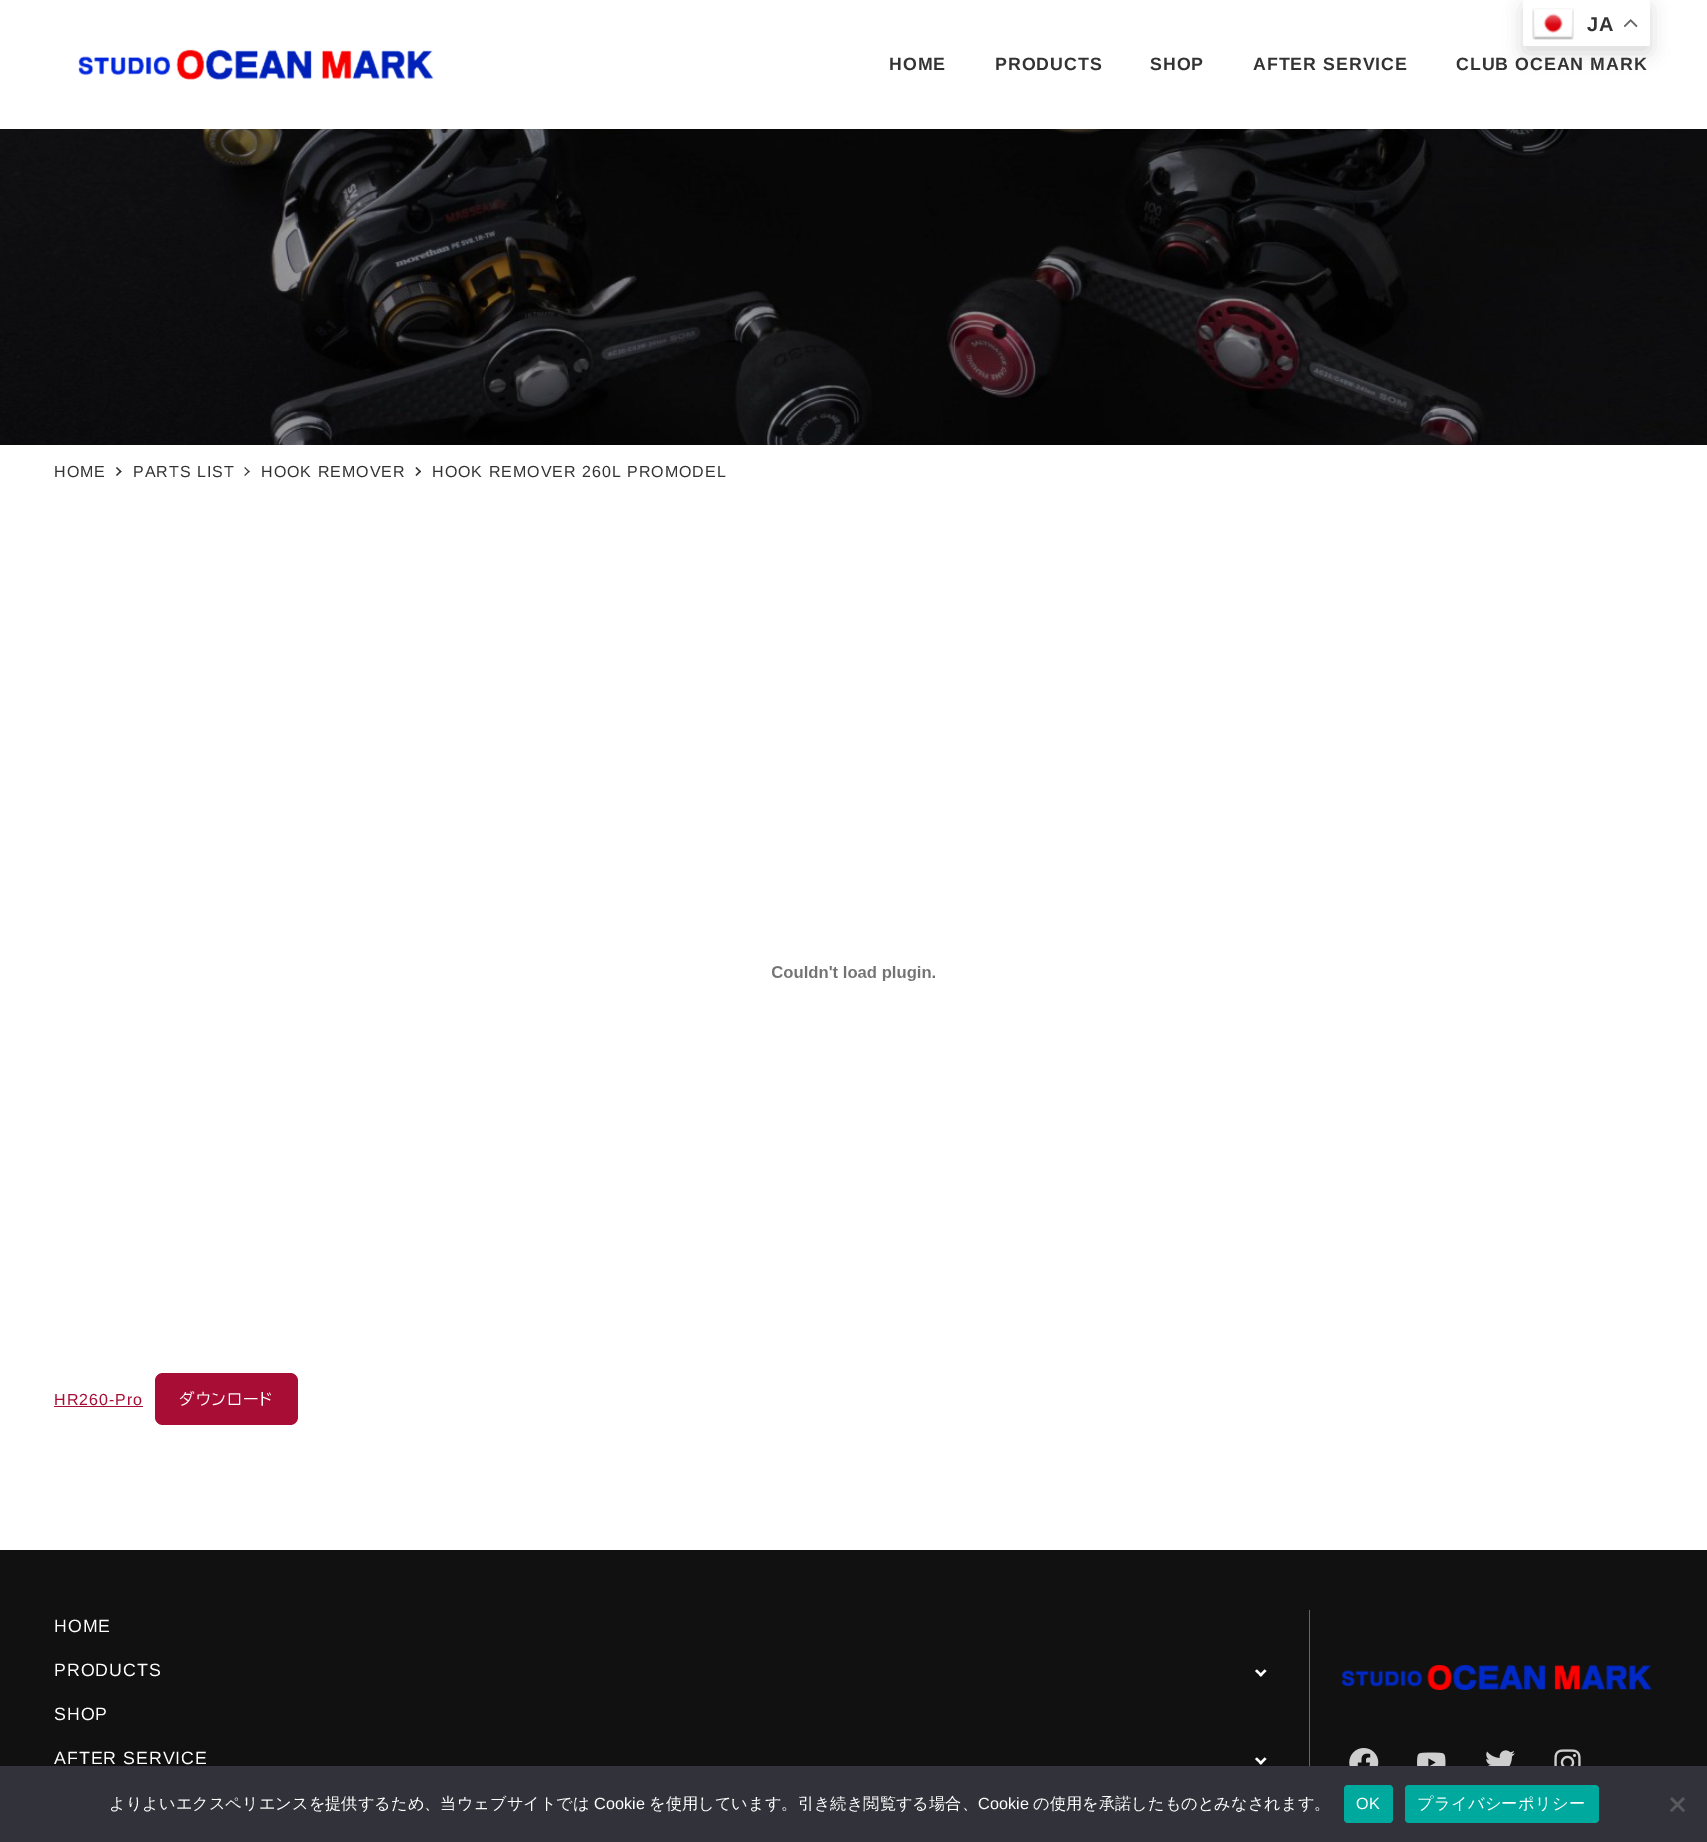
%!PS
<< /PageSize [1707 1842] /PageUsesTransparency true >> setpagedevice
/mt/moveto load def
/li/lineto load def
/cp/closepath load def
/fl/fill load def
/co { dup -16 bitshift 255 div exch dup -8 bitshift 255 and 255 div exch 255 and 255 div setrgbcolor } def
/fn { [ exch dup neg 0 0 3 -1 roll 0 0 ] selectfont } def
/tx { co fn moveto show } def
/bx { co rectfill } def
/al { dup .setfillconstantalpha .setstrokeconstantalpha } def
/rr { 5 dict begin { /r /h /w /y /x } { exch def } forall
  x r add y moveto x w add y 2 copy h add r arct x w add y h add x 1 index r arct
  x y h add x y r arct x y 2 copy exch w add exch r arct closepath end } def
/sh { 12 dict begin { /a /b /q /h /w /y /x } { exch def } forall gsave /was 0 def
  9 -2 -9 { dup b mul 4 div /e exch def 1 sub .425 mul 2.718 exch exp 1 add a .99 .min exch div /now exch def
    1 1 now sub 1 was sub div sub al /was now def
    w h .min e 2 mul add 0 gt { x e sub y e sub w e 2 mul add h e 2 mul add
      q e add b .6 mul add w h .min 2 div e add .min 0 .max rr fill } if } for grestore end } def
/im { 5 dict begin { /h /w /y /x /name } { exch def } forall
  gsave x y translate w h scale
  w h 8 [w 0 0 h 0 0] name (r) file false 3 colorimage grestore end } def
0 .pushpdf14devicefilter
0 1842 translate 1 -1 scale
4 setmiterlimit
0 0 1707 1842 16#FFFFFF bx
(media/4.raw) 0 129 1707 316 im
16#000000 co
-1 0 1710 131 0 1 .05 sh
0 0 1707 129 16#FFFFFF bx
16#000000 co
1523 6 127 47 2.5 9.5 .15 sh
16#FFFFFF co
1523 0 127 46 2.5 rr fl
(media/1.raw) 1532 8 42 32 im
(media/2.raw) 1624 19 14 9 im
(media/3.raw) 78 49 356 31 im
16#333333 co
117 467 mt 121.5 471.5 li 120.5 472.5 li 116 468 li cp fl
120.5 470.5 mt 121.5 471.5 li 117 476 li 116 475 li cp fl
245 467 mt 249.5 471.5 li 249 472.5 li 244.5 468 li cp fl
249 470.5 mt 249.5 471.5 li 245 476 li 244.5 475 li cp fl
416.5 467 mt 421 471.5 li 420 472.5 li 415.5 468 li cp fl
420 470.5 mt 421 471.5 li 416.5 476 li 415.5 475 li cp fl
(media/5.raw) 772 966 163 15 im
54 1406 89 1 16#A80D36 bx
155 1373 143 52 8 rr fl
0 1550 1707 216 16#111111 bx
16#FFFFFF co
1266.5 1671 mt 1261 1676.5 li 1259 1675 li 1264.5 1669.5 li cp fl
1262.5 1675 mt 1261 1676.5 li 1255 1671 li 1257 1669.5 li cp fl
1266.5 1759 mt 1261 1764.5 li 1259 1763 li 1264.5 1757.5 li cp fl
1262.5 1763 mt 1261 1764.5 li 1255 1759 li 1257 1757.5 li cp fl
1309 1610 1 156 16#666666 bx
(media/6.raw) 1342 1665 310 25 im
(media/7.raw) 1349 1748 30 18 im
(media/8.raw) 1417 1752 29 14 im
(media/9.raw) 1486 1750 29 16 im
(media/10.raw) 1554 1749 27 17 im
0 1766 1707 76 16#32323A bx
16#00A99D co
1344 1785 49 38 4 rr fl
1405 1785 194 38 4 rr fl
16#59595D co
1683 1797 mt 1685 1799 li 1672 1812 li 1670 1810.5 li cp fl
1670 1799 mt 1672 1797 li 1685 1810.5 li 1683 1812 li cp fl
/LiberationSans-Bold 20 fn
16#333333 co
1587 31 mt 1 0 (JA) ashow
/LiberationSans-Bold 17.75 fn
889 70 mt 1 0 (HOME) ashow
995 70 mt 1 0 (PRODUCTS) ashow
1150 70 mt 1 0 (SHOP) ashow
1253 70 mt 1 0 (AFTER SERVICE) ashow
1456 70 mt 1 0 (CLUB OCEAN MARK) ashow
/LiberationSans-Regular 16 fn
54 477 mt 1 0 (HOME) ashow
133 477 mt 1 0 (PARTS LIST) ashow
261 477 mt 1 0 (HOOK REMOVER) ashow
432 477 mt 1 0 (HOOK REMOVER 260L PROMODEL) ashow
16#A80D36 co
54 1405 mt 1 0 (HR260-Pro) ashow
/BIZUDPGothic-Regular 16 fn
16#FFFFFF co
179 1405 mt 1 0 (ダウンロード) ashow
/LiberationSans-Regular 17.75 fn
54 1632 mt 1 0 (HOME) ashow
54 1676 mt 1 0 (PRODUCTS) ashow
54 1720 mt 1 0 (SHOP) ashow
54 1764 mt 1 0 (AFTER SERVICE) ashow
(よりよいエクスペリエンスを提供するため、当ウェブサイトでは) 109 1809 /WenQuanYiZenHei-Medium 16.25 16#FFFFFF tx
(Cookie) 594 1809 /LiberationSans-Regular 16.25 16#FFFFFF tx
(を使用しています。引き続き閲覧する場合、) 649 1809 /WenQuanYiZenHei-Medium 16.25 16#FFFFFF tx
(Cookie) 978 1809 /LiberationSans-Regular 16.25 16#FFFFFF tx
(の使用を承諾したものとみなされます。) 1033 1809 /WenQuanYiZenHei-Medium 16.25 16#FFFFFF tx
/LiberationSans-Regular 16.25 fn
1356 1809 mt .25 0 (OK) ashow
/WenQuanYiZenHei-Medium 16.25 fn
1417 1809 mt .25 0 (プライバシーポリシー) ashow
.poppdf14devicefilter showpage
